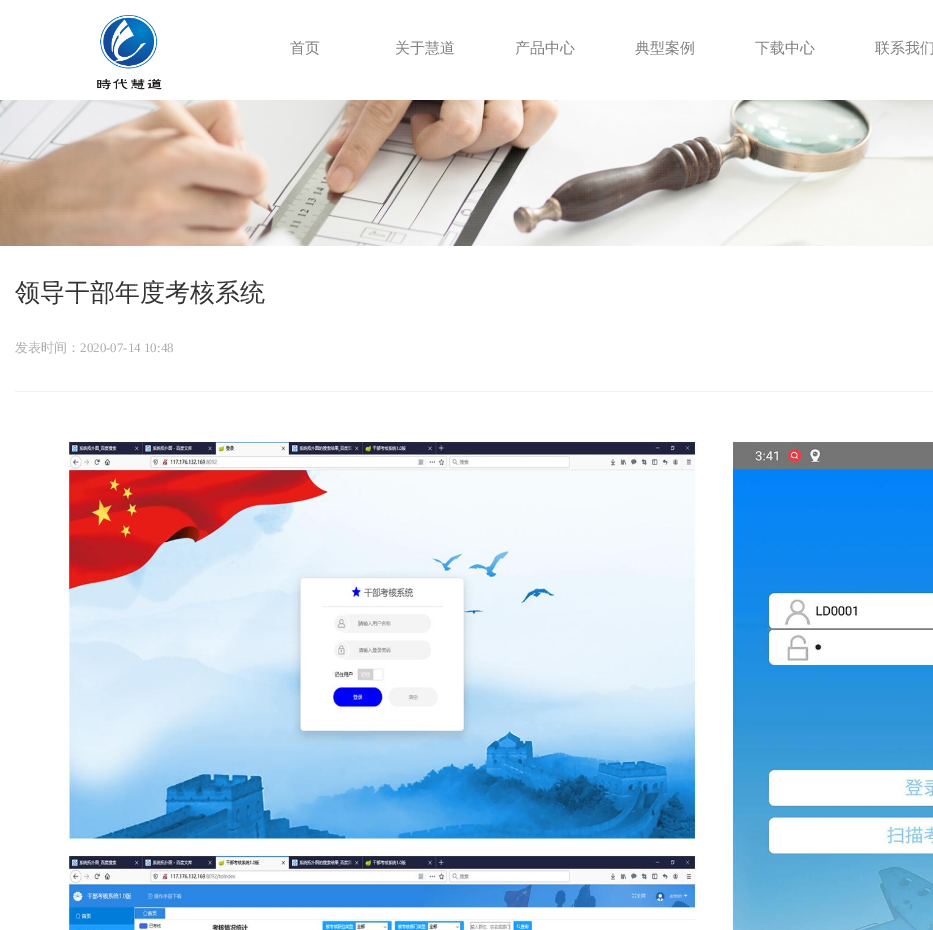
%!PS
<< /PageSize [933 930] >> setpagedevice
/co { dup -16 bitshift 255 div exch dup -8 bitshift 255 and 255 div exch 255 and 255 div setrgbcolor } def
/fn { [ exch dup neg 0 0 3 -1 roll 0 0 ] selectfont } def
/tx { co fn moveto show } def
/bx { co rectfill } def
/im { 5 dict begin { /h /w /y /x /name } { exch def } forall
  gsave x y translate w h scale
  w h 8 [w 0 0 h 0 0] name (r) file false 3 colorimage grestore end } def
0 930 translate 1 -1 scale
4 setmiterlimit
0 0 933 930 16#FFFFFF bx
(media/1.raw) 97 15 65 75 im
(media/2.raw) 0 100 933 146 im
15 391 918 1 16#F0EFEF bx
(media/3.raw) 63 441 870 489 im
(首页) 290 53 /WenQuanYiZenHei-Medium 15 16#808080 tx
(关于慧道) 395 53 /WenQuanYiZenHei-Medium 15 16#808080 tx
(产品中心) 515 53 /WenQuanYiZenHei-Medium 15 16#808080 tx
(典型案例) 635 53 /WenQuanYiZenHei-Medium 15 16#808080 tx
(下载中心) 755 53 /WenQuanYiZenHei-Medium 15 16#808080 tx
(联系我们) 875 53 /WenQuanYiZenHei-Medium 15 16#808080 tx
(领导干部年度考核系统) 15 301 /WenQuanYiZenHei-Medium 25 16#333333 tx
(发表时间：) 15 352 /WenQuanYiZenHei-Medium 13 16#ADADAD tx
(2020-07-14 10:48) 80 352 /LiberationSerif-Regular 13 16#ADADAD tx
showpage
